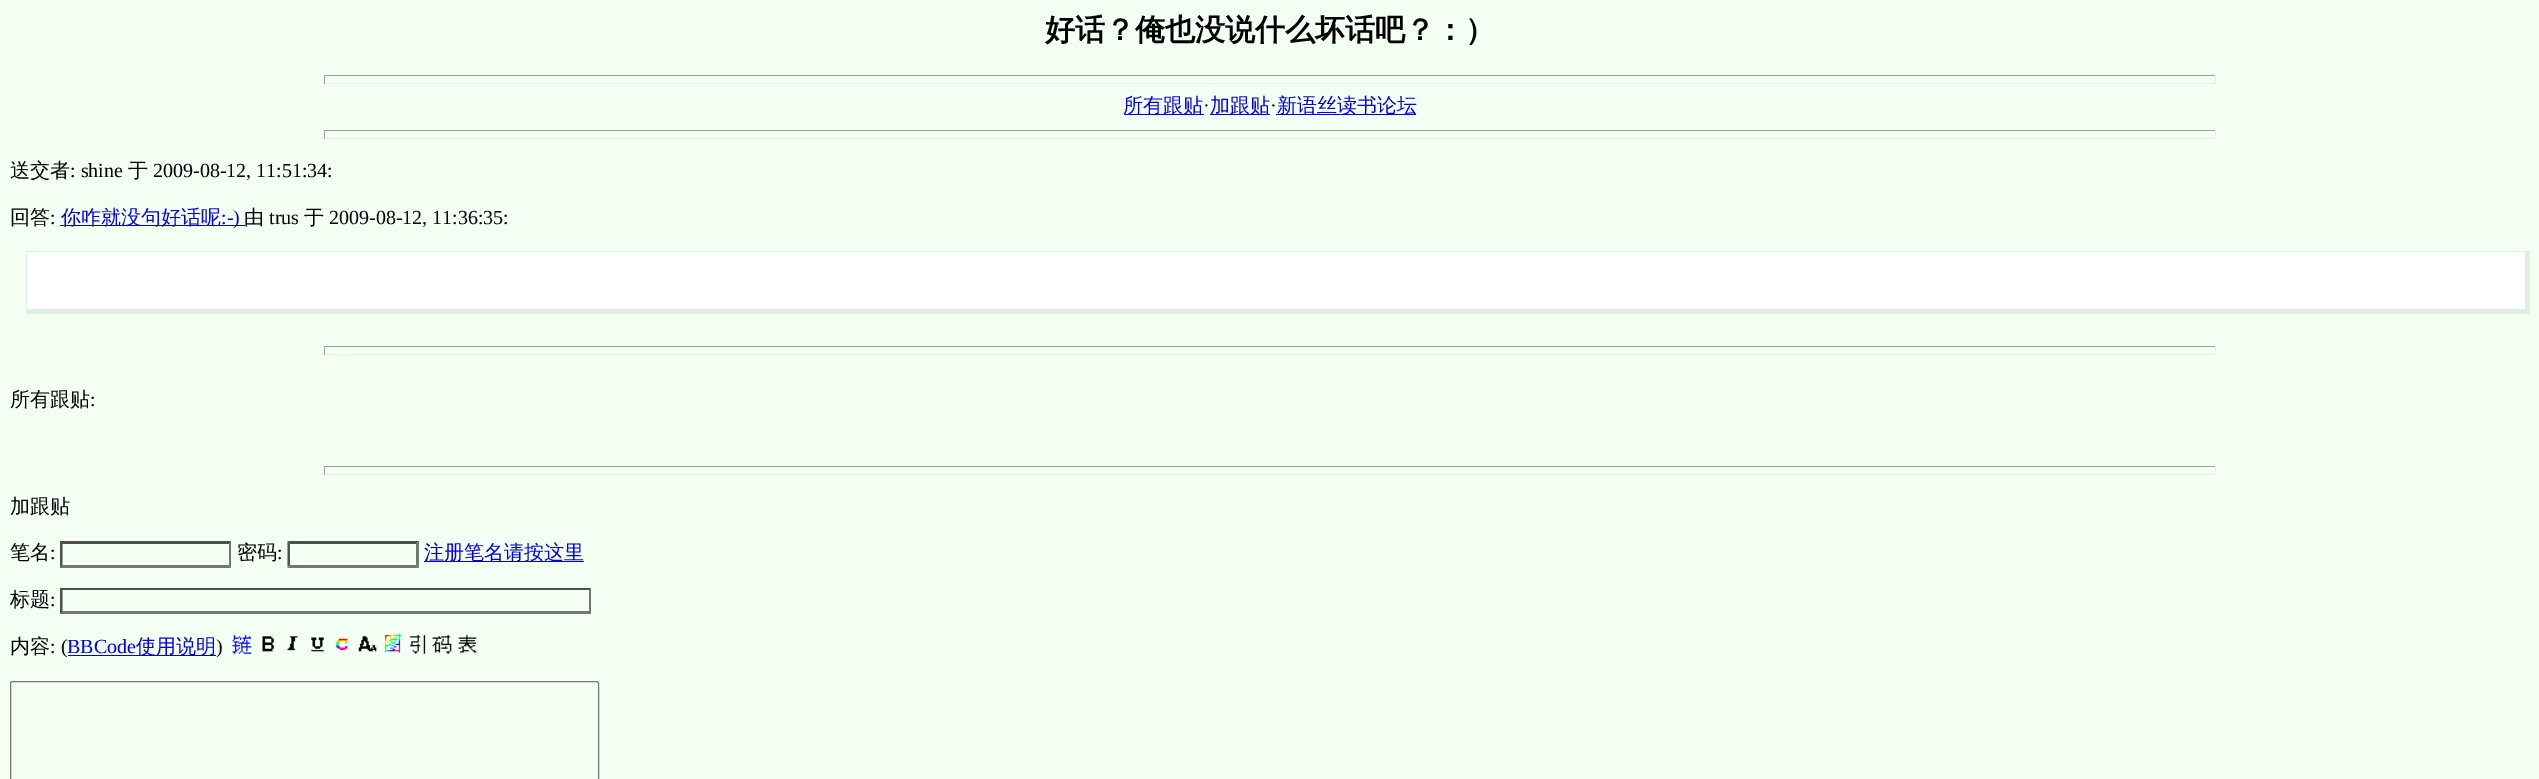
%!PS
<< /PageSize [2539 779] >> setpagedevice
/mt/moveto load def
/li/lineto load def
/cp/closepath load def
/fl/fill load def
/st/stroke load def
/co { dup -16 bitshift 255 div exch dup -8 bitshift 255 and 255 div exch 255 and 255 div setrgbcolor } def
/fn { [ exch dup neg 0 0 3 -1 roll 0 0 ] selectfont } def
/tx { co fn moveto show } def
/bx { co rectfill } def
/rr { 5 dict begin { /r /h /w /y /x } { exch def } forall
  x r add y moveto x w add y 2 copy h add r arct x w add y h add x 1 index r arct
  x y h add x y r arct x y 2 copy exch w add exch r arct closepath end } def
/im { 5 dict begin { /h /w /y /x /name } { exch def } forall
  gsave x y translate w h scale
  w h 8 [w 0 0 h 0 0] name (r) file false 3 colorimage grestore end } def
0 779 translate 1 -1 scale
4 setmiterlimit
0 0 2539 779 16#F4FFF4 bx
324 75 1892 1 16#9F9F9F bx
2215 75 1 9 16#EEEEEE bx
324 83 1892 1 16#EEEEEE bx
324 75 1 9 16#9F9F9F bx
1124 114 80 1 16#0000EE bx
1210 114 60 1 16#0000EE bx
1276 114 140 1 16#0000EE bx
324 130 1892 1 16#9F9F9F bx
2215 130 1 9 16#EEEEEE bx
324 138 1892 1 16#EEEEEE bx
324 130 1 9 16#9F9F9F bx
60 225 185 1 16#0000EE bx
28 253 2497 56 16#FFFFFF bx
26 251 2504 1 16#E0F0E0 bx
2525 251 5 63 16#E0F0E0 bx
26 309 2504 5 16#E0F0E0 bx
26 251 1 63 16#E0F0E0 bx
324 346 1892 1 16#9F9F9F bx
2215 346 1 9 16#EEEEEE bx
324 354 1892 1 16#EEEEEE bx
324 346 1 9 16#9F9F9F bx
324 466 1892 1 16#9F9F9F bx
2215 466 1 9 16#EEEEEE bx
324 474 1892 1 16#EEEEEE bx
324 466 1 9 16#9F9F9F bx
16#4F4F4F co
60 541 mt 231 541 li 229 544 li 62 544 li cp fl
16#767676 co
231 541 mt 231 567.5 li 229 565 li 229 544 li cp fl
231 568 mt 60 568 li 62 565 li 229 565 li cp fl
16#4F4F4F co
60 567.5 mt 60 541 li 62.5 544 li 62.5 565 li cp fl
288 541 mt 419 541 li 416 544 li 290 544 li cp fl
16#767676 co
419 541 mt 419 567.5 li 416 565 li 416 544 li cp fl
419 568 mt 288 568 li 290 565 li 416 565 li cp fl
16#4F4F4F co
287.5 567.5 mt 287.5 541 li 290 544 li 290 565 li cp fl
424 561 160 1 16#0000EE bx
16#4F4F4F co
60 588 mt 591 588 li 589 590 li 62 590 li cp fl
16#767676 co
591 587.5 mt 591 614 li 589 611 li 589 590 li cp fl
591 614 mt 60 614 li 62 611 li 589 611 li cp fl
16#4F4F4F co
60 614 mt 60 587.5 li 62.5 590 li 62.5 611 li cp fl
68 655 148 1 16#0000EE bx
(media/1.raw) 232 634 20 20 im
(media/2.raw) 262 636 12 16 im
(media/3.raw) 287 636 11 15 im
(media/4.raw) 311 637 13 15 im
(media/5.raw) 336 638 12 13 im
(media/6.raw) 358 636 19 16 im
(media/7.raw) 384 633 18 20 im
(media/8.raw) 409 634 17 20 im
(media/9.raw) 432 634 20 20 im
(media/10.raw) 458 634 19 19 im
16#767676 co
10.5 681.5 588 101 2 rr st
(好话？俺也没说什么坏话吧？：）) 1045 40 /WenQuanYiZenHei-Bold 30 16#000000 tx
(所有跟贴) 1123 112 /WenQuanYiZenHei-Medium 20 16#0000EE tx
(·) 1203 112 /LiberationSerif-Regular 20 16#000000 tx
(加跟贴) 1210 112 /WenQuanYiZenHei-Medium 20 16#0000EE tx
(·) 1270 112 /LiberationSerif-Regular 20 16#000000 tx
(新语丝读书论坛) 1277 112 /WenQuanYiZenHei-Medium 20 16#0000EE tx
(送交者) 10 177 /WenQuanYiZenHei-Medium 20 16#000000 tx
(: shine) 70 177 /LiberationSerif-Regular 20 16#000000 tx
(于) 128 177 /WenQuanYiZenHei-Medium 20 16#000000 tx
(2009-08-12, 11:51:34:) 153 177 /LiberationSerif-Regular 20 16#000000 tx
(回答) 10 224 /WenQuanYiZenHei-Medium 20 16#000000 tx
(:) 50 224 /LiberationSerif-Regular 20 16#000000 tx
(你咋就没句好话呢) 61 224 /WenQuanYiZenHei-Medium 20 16#0000EE tx
(:-\)) 221 224 /LiberationSerif-Regular 20 16#0000EE tx
(由) 244 224 /WenQuanYiZenHei-Medium 20 16#000000 tx
(trus) 269 224 /LiberationSerif-Regular 20 16#000000 tx
(于) 304 224 /WenQuanYiZenHei-Medium 20 16#000000 tx
(2009-08-12, 11:36:35:) 329 224 /LiberationSerif-Regular 20 16#000000 tx
(所有跟贴) 10 406 /WenQuanYiZenHei-Medium 20 16#000000 tx
(:) 90 406 /LiberationSerif-Regular 20 16#000000 tx
(加跟贴) 10 513 /WenQuanYiZenHei-Medium 20 16#000000 tx
(笔名) 10 559 /WenQuanYiZenHei-Medium 20 16#000000 tx
(:) 50 559 /LiberationSerif-Regular 20 16#000000 tx
(密码) 237 559 /WenQuanYiZenHei-Medium 20 16#000000 tx
(:) 277 559 /LiberationSerif-Regular 20 16#000000 tx
(注册笔名请按这里) 424 559 /WenQuanYiZenHei-Medium 20 16#0000EE tx
(标题) 10 606 /WenQuanYiZenHei-Medium 20 16#000000 tx
(:) 50 606 /LiberationSerif-Regular 20 16#000000 tx
(内容) 10 653 /WenQuanYiZenHei-Medium 20 16#000000 tx
(: \() 50 653 /LiberationSerif-Regular 20 16#000000 tx
(BBCode) 67 653 /LiberationSerif-Regular 20 16#0000EE tx
(使用说明) 136 653 /WenQuanYiZenHei-Medium 20 16#0000EE tx
(\)) 216 653 /LiberationSerif-Regular 20 16#000000 tx
showpage
